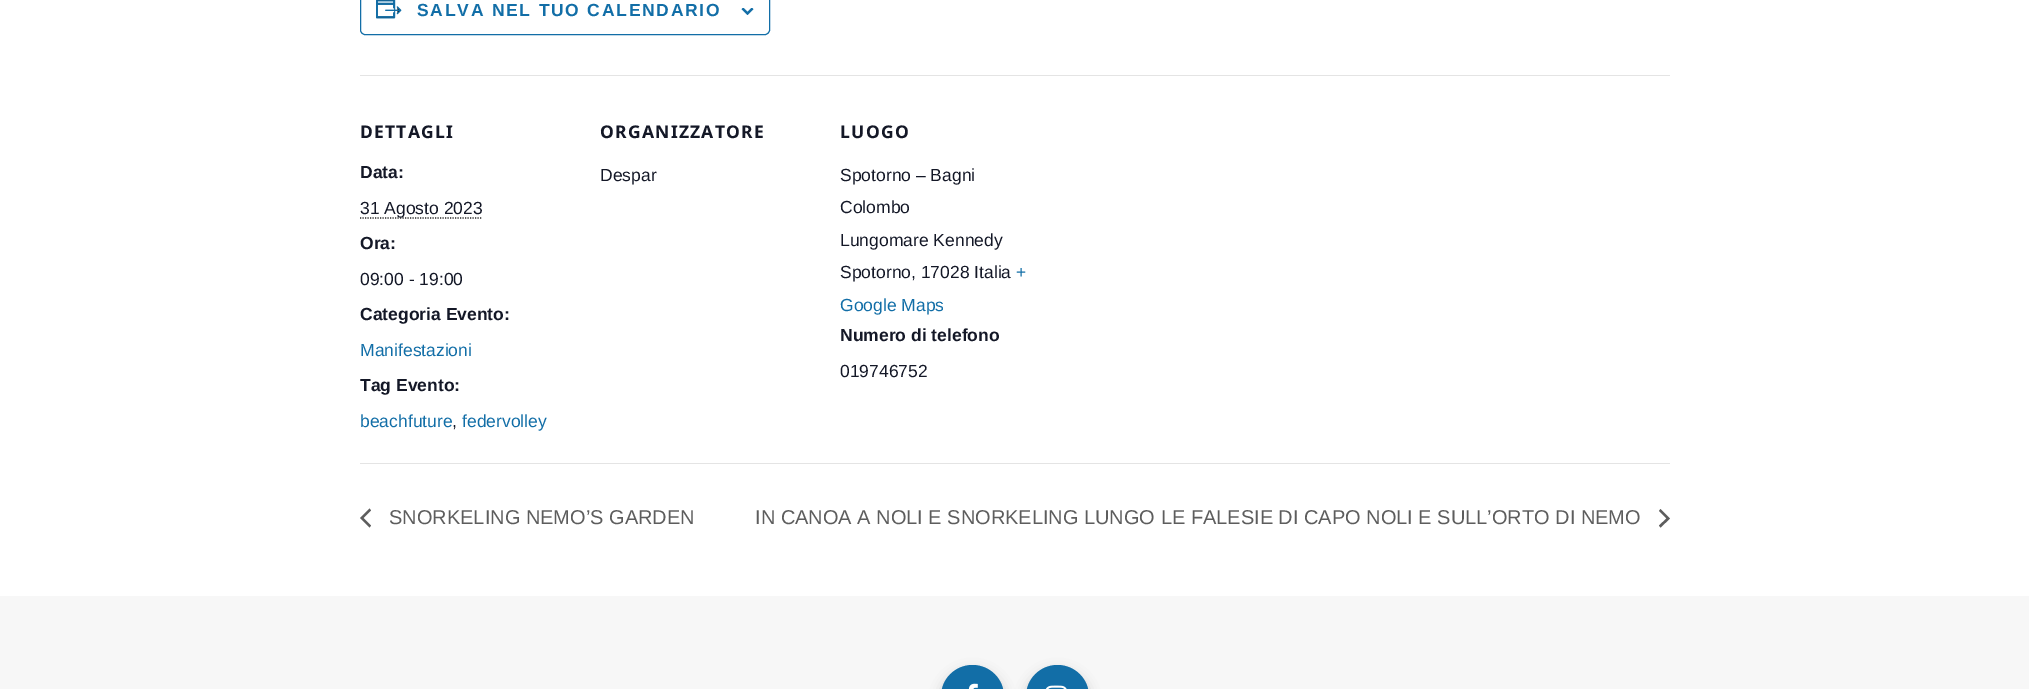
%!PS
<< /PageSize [2029 689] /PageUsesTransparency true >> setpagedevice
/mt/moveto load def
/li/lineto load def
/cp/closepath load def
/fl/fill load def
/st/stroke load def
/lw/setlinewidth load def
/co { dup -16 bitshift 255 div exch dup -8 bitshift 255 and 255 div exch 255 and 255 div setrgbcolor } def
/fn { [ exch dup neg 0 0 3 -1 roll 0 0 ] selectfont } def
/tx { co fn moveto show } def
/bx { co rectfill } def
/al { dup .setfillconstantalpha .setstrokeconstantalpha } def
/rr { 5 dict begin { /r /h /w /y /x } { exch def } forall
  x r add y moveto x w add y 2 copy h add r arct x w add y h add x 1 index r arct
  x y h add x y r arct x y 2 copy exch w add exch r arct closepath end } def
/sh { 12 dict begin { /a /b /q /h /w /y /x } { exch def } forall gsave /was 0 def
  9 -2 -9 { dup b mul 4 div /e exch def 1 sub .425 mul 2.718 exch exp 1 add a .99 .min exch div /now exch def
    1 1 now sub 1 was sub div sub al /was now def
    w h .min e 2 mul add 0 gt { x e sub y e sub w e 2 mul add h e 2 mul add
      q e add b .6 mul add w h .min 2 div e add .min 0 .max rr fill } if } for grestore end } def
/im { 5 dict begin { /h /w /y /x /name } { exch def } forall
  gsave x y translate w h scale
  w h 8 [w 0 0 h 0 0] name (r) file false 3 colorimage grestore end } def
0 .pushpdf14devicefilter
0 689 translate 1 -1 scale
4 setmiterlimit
0 0 2029 689 16#FFFFFF bx
16#126EA7 co
360.5 -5.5 409 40 4.5 rr st
(media/1.raw) 376 0 26 19 im
(media/2.raw) 741 8 13 7 im
360 75 1310 1 16#E4E4E4 bx
16#222222 co
1.2 lw
[1.25 1.25] 0 setdash
360 218 mt 482.5 218 li st
360 463 1310 1 16#E4E4E4 bx
16#5D5D5D co
371 525.5 mt 369.5 527.5 li 360 518 li 369.5 508.5 li 371 510.5 li 363.5 518 li cp fl
1659 511 mt 1660.5 509 li 1670 518.5 li 1660.5 527.5 li 1659 525.5 li 1666.5 518.5 li cp fl
0 596 2029 93 16#F7F7F7 bx
16#000000 co
941 671 63 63 31.5 6 .2 sh
16#126EA7 co
941 665 63 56 31.5 rr fl
(media/3.raw) 968 683 10 6 im
16#000000 co
1026 671 63 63 31.5 6 .2 sh
16#126EA7 co
1026 665 63 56 31.5 rr fl
(media/4.raw) 1045 685 22 4 im
/LiberationSans-Bold 17.5 fn
417 16 mt 1.75 0 (SALVA NEL TUO CALENDARIO) ashow
/NotoSans-Bold 17.5 fn
16#141827 co
360 138 mt 1.25 0 (DETTAGLI) ashow
(Data:) 360 178 /LiberationSans-Bold 17.5 16#141827 tx
(31 Agosto 2023) 360 214 /LiberationSans-Regular 17.5 16#141827 tx
(Ora:) 360 249 /LiberationSans-Bold 17.5 16#141827 tx
(09:00 - 19:00) 360 285 /LiberationSans-Regular 17.5 16#141827 tx
(Categoria Evento:) 360 320 /LiberationSans-Bold 17.5 16#141827 tx
(Manifestazioni) 360 356 /LiberationSans-Regular 17.5 16#126EA7 tx
(Tag Evento:) 360 391 /LiberationSans-Bold 17.5 16#141827 tx
(beachfuture) 360 427 /LiberationSans-Regular 17.5 16#126EA7 tx
(,) 452 427 /LiberationSans-Regular 17.5 16#141827 tx
(federvolley) 462 427 /LiberationSans-Regular 17.5 16#126EA7 tx
/NotoSans-Bold 17.5 fn
16#141827 co
600 138 mt 1.25 0 (ORGANIZZATORE) ashow
(Despar) 600 181 /LiberationSans-Regular 17.5 16#141827 tx
/NotoSans-Bold 17.5 fn
840 138 mt 1.25 0 (LUOGO) ashow
(Spotorno – Bagni) 840 181 /LiberationSans-Regular 17.5 16#141827 tx
(Colombo) 840 213 /LiberationSans-Regular 17.5 16#141827 tx
(Lungomare Kennedy) 840 246 /LiberationSans-Regular 17.5 16#141827 tx
(Spotorno, 17028 Italia) 840 278 /LiberationSans-Regular 17.5 16#141827 tx
(+) 1016 278 /LiberationSans-Regular 17.5 16#126EA7 tx
(Google Maps) 840 311 /LiberationSans-Regular 17.5 16#126EA7 tx
(Numero di telefono) 840 341 /LiberationSans-Bold 17.5 16#141827 tx
(019746752) 840 377 /LiberationSans-Regular 17.5 16#141827 tx
(SNORKELING NEMO’S GARDEN) 389 524 /LiberationSans-Regular 20 16#5D5D5D tx
(IN CANOA A NOLI E SNORKELING LUNGO LE FALESIE DI CAPO NOLI E SULL’ORTO DI NEMO) 755 524 /LiberationSans-Regular 20 16#5D5D5D tx
.poppdf14devicefilter showpage
